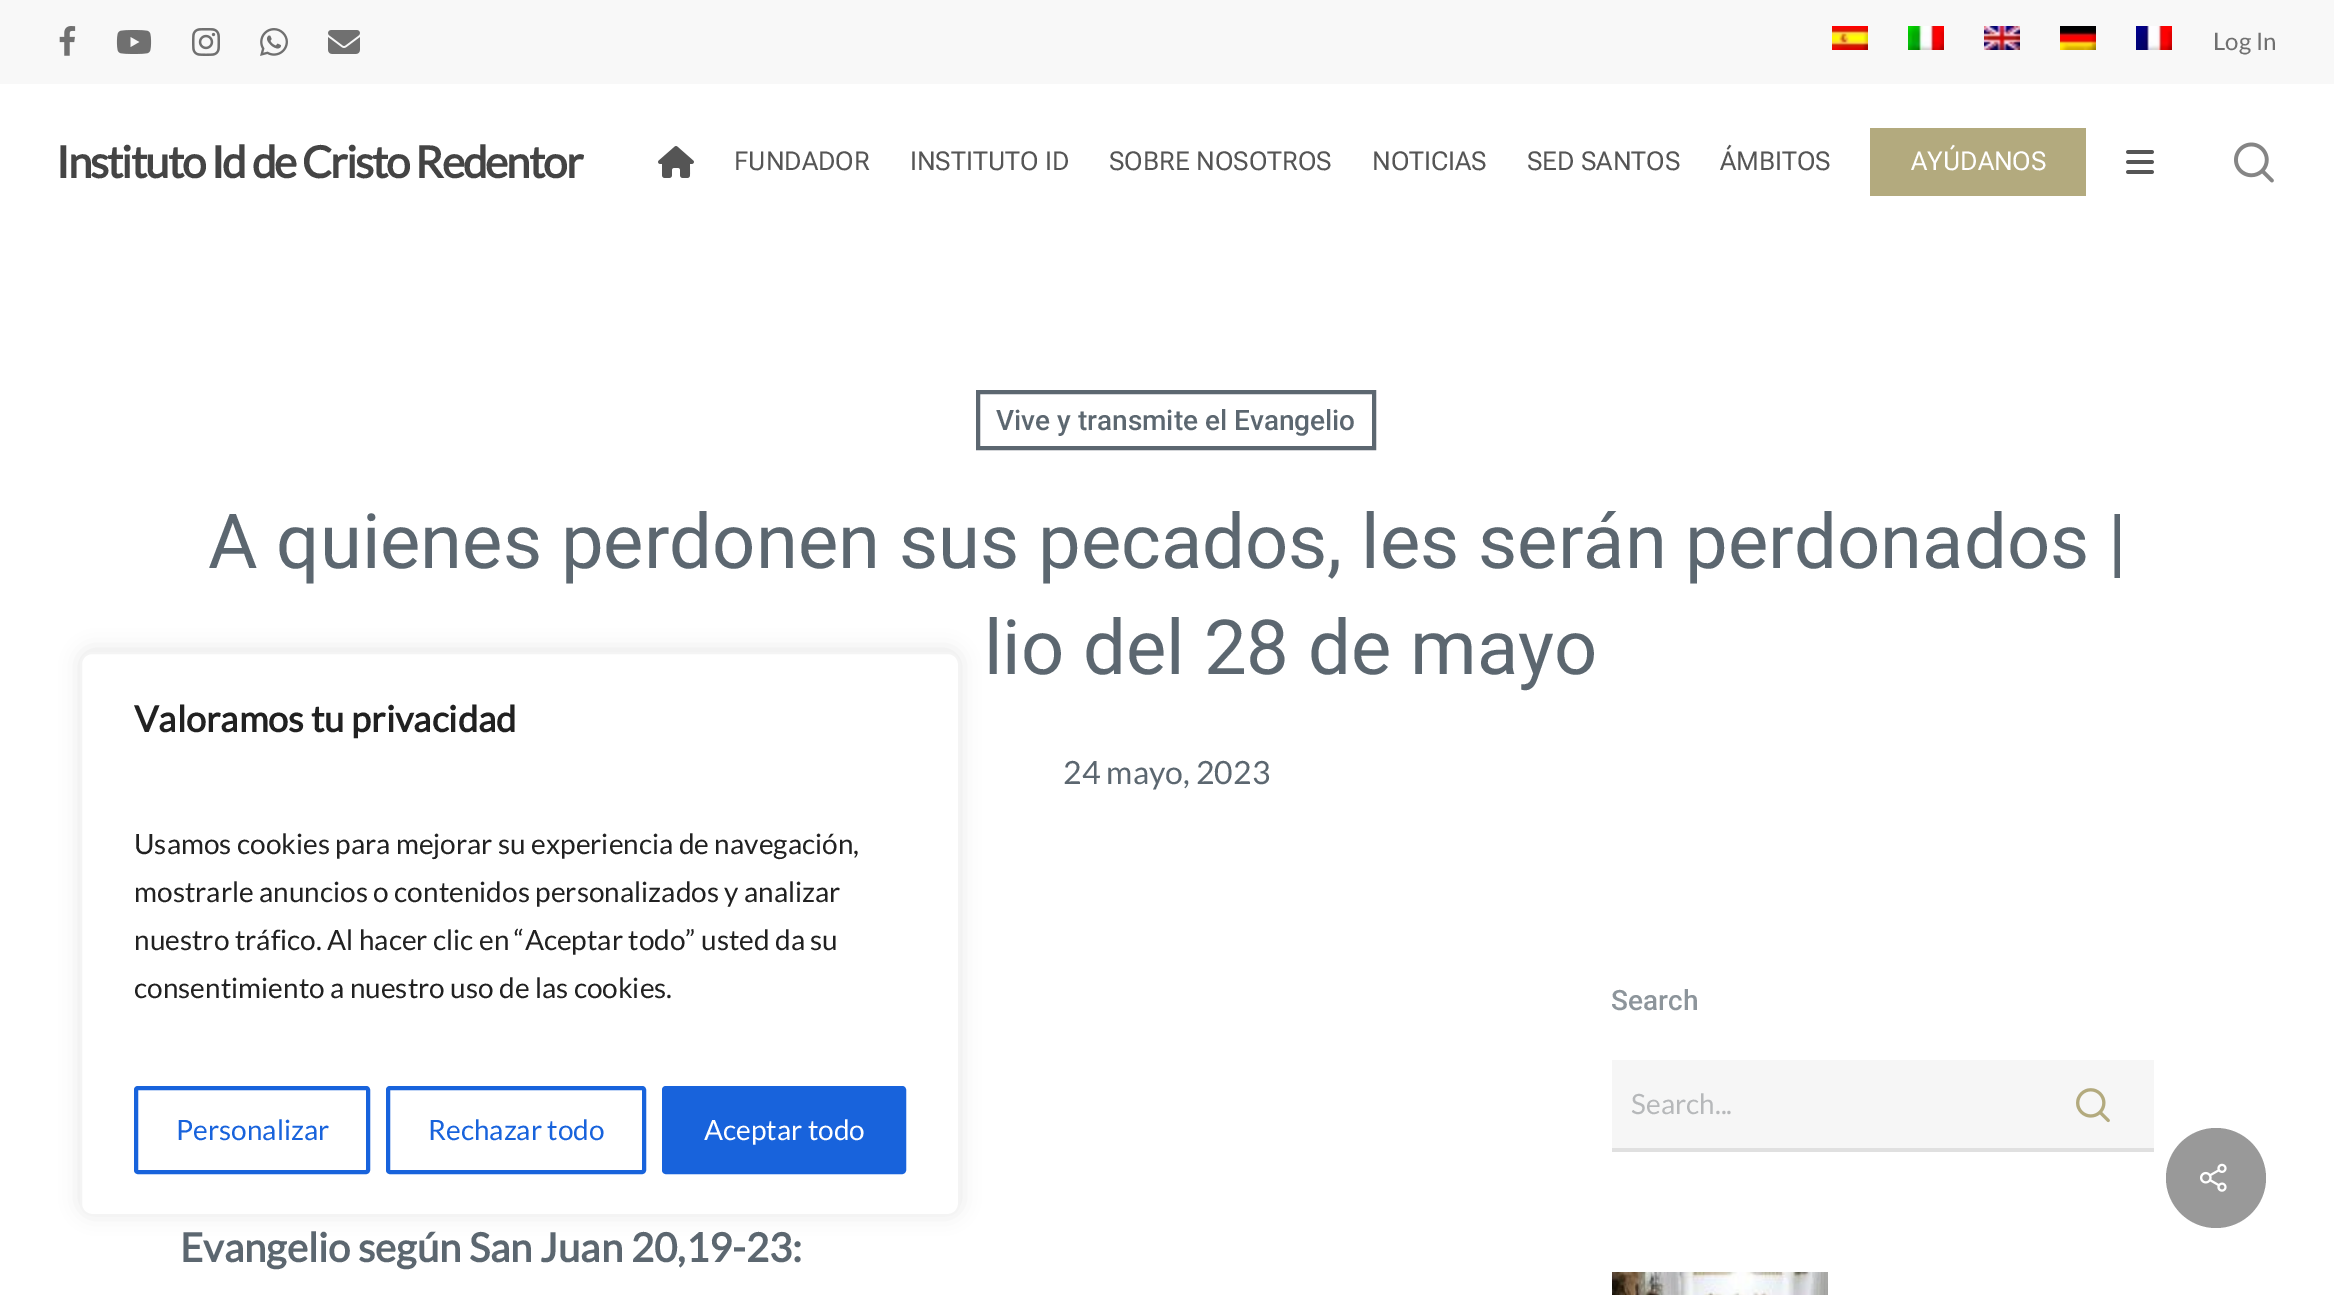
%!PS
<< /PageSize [2334 1295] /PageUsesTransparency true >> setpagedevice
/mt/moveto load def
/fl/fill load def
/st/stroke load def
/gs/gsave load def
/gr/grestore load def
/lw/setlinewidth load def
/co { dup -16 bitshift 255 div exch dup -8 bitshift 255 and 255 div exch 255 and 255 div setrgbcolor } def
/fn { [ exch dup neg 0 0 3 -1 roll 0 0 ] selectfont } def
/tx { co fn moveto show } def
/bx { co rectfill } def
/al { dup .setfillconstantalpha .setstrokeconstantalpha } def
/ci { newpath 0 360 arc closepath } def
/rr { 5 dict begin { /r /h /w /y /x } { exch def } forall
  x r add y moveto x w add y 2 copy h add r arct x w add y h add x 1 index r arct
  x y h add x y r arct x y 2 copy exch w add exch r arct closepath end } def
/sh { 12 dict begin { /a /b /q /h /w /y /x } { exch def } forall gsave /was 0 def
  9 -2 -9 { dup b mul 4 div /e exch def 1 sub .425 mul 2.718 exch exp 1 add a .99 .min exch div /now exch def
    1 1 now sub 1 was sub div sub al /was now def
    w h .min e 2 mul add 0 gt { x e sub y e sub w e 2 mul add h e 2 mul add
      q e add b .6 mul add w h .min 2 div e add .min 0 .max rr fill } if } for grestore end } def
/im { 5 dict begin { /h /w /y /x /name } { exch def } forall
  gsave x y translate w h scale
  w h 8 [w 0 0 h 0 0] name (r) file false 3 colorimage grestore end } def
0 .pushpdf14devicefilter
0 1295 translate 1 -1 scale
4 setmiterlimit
0 0 2334 1295 16#FFFFFF bx
0 0 2334 84 16#F8F8F8 bx
(media/1.raw) 59 26 17 30 im
(media/2.raw) 116 30 36 24 im
(media/3.raw) 192 28 28 28 im
(media/4.raw) 260 28 28 28 im
(media/5.raw) 328 30 32 24 im
(media/6.raw) 1832 26 36 24 im
(media/7.raw) 1908 26 36 24 im
(media/8.raw) 1984 26 36 24 im
(media/9.raw) 2060 26 36 24 im
(media/10.raw) 2136 26 36 24 im
(media/11.raw) 658 146 36 32 im
1870 128 216 68 16#B3AA7E bx
(media/12.raw) 2126 150 28 24 im
(media/13.raw) 2234 142 40 41 im
16#5C6770 co
4 lw
978 392 396 56 rectstroke
1612 1060 542 88 16#F6F6F6 bx
1612 1148 542 4 16#E0E0E0 bx
(media/14.raw) 2076 1088 34 35 im
(media/15.raw) 1612 1272 216 23 im
16#999999 co
2216 1178 50 ci fl
(media/16.raw) 2200 1163 27 29 im
16#ACABAB co
80 650 880 564 12 10 .3 sh
16#FFFFFF co
81 653 878 562 11 rr gs fl gr
16#F4F4F4 co
2 lw
st
16#1863DC co
4 lw
136 1088 232 84 2 rr st
388 1088 256 84 2 rr st
664 1088 240 84 2 rr gs fl gr
st
(Log In) 2213 50 /Lato-Regular 24 16#707070 tx
/Lato-Bold 44 fn
16#444444 co
56 178 mt -2 0 (Instituto Id de Cristo Redentor) ashow
(FUNDADOR) 734 170 /RobotoFlex-Regular 26 16#555555 tx
(INSTITUTO ID) 910 170 /RobotoFlex-Regular 26 16#555555 tx
(SOBRE NOSOTROS) 1109 170 /RobotoFlex-Regular 26 16#555555 tx
(NOTICIAS) 1372 170 /RobotoFlex-Regular 26 16#555555 tx
(SED SANTOS) 1527 170 /RobotoFlex-Regular 26 16#555555 tx
(ÁMBITOS) 1720 170 /RobotoFlex-Regular 26 16#555555 tx
(AYÚDANOS) 1911 170 /RobotoFlex-Regular 26 16#FFFFFF tx
(Vive y transmite el Evangelio) 996 430 /Roboto-Medium 28 16#5C6770 tx
(A quienes perdonen sus pecados, les serán perdonados |) 208 568 /Roboto-Regular 76 16#5C6770 tx
(lio del 28 de mayo) 984 674 /Roboto-Regular 76 16#5C6770 tx
(24 mayo, 2023) 1063 784 /Lato-Regular 32 16#5C6770 tx
(Search) 1611 1010 /Roboto-Medium 28 16#8D959B tx
(Search...) 1631 1114 /Lato-Regular 28 16#B6B8BA tx
(Evangelio según San Juan 20,19-23:) 180 1262 /Lato-Bold 40 16#5C6770 tx
(Valoramos tu privacidad) 134 732 /Lato-Bold 36 16#212121 tx
(Usamos cookies para mejorar su experiencia de navegación,) 134 854 /Lato-Regular 28 16#212121 tx
(mostrarle anuncios o contenidos personalizados y analizar) 134 902 /Lato-Regular 28 16#212121 tx
(nuestro tráfico. Al hacer clic en “Aceptar todo” usted da su) 134 950 /Lato-Regular 28 16#212121 tx
(consentimiento a nuestro uso de las cookies.) 134 998 /Lato-Regular 28 16#212121 tx
(Personalizar) 176 1140 /Lato-Regular 28 16#1863DC tx
(Rechazar todo) 428 1140 /Lato-Regular 28 16#1863DC tx
(Aceptar todo) 704 1140 /Lato-Regular 28 16#FFFFFF tx
.poppdf14devicefilter showpage
